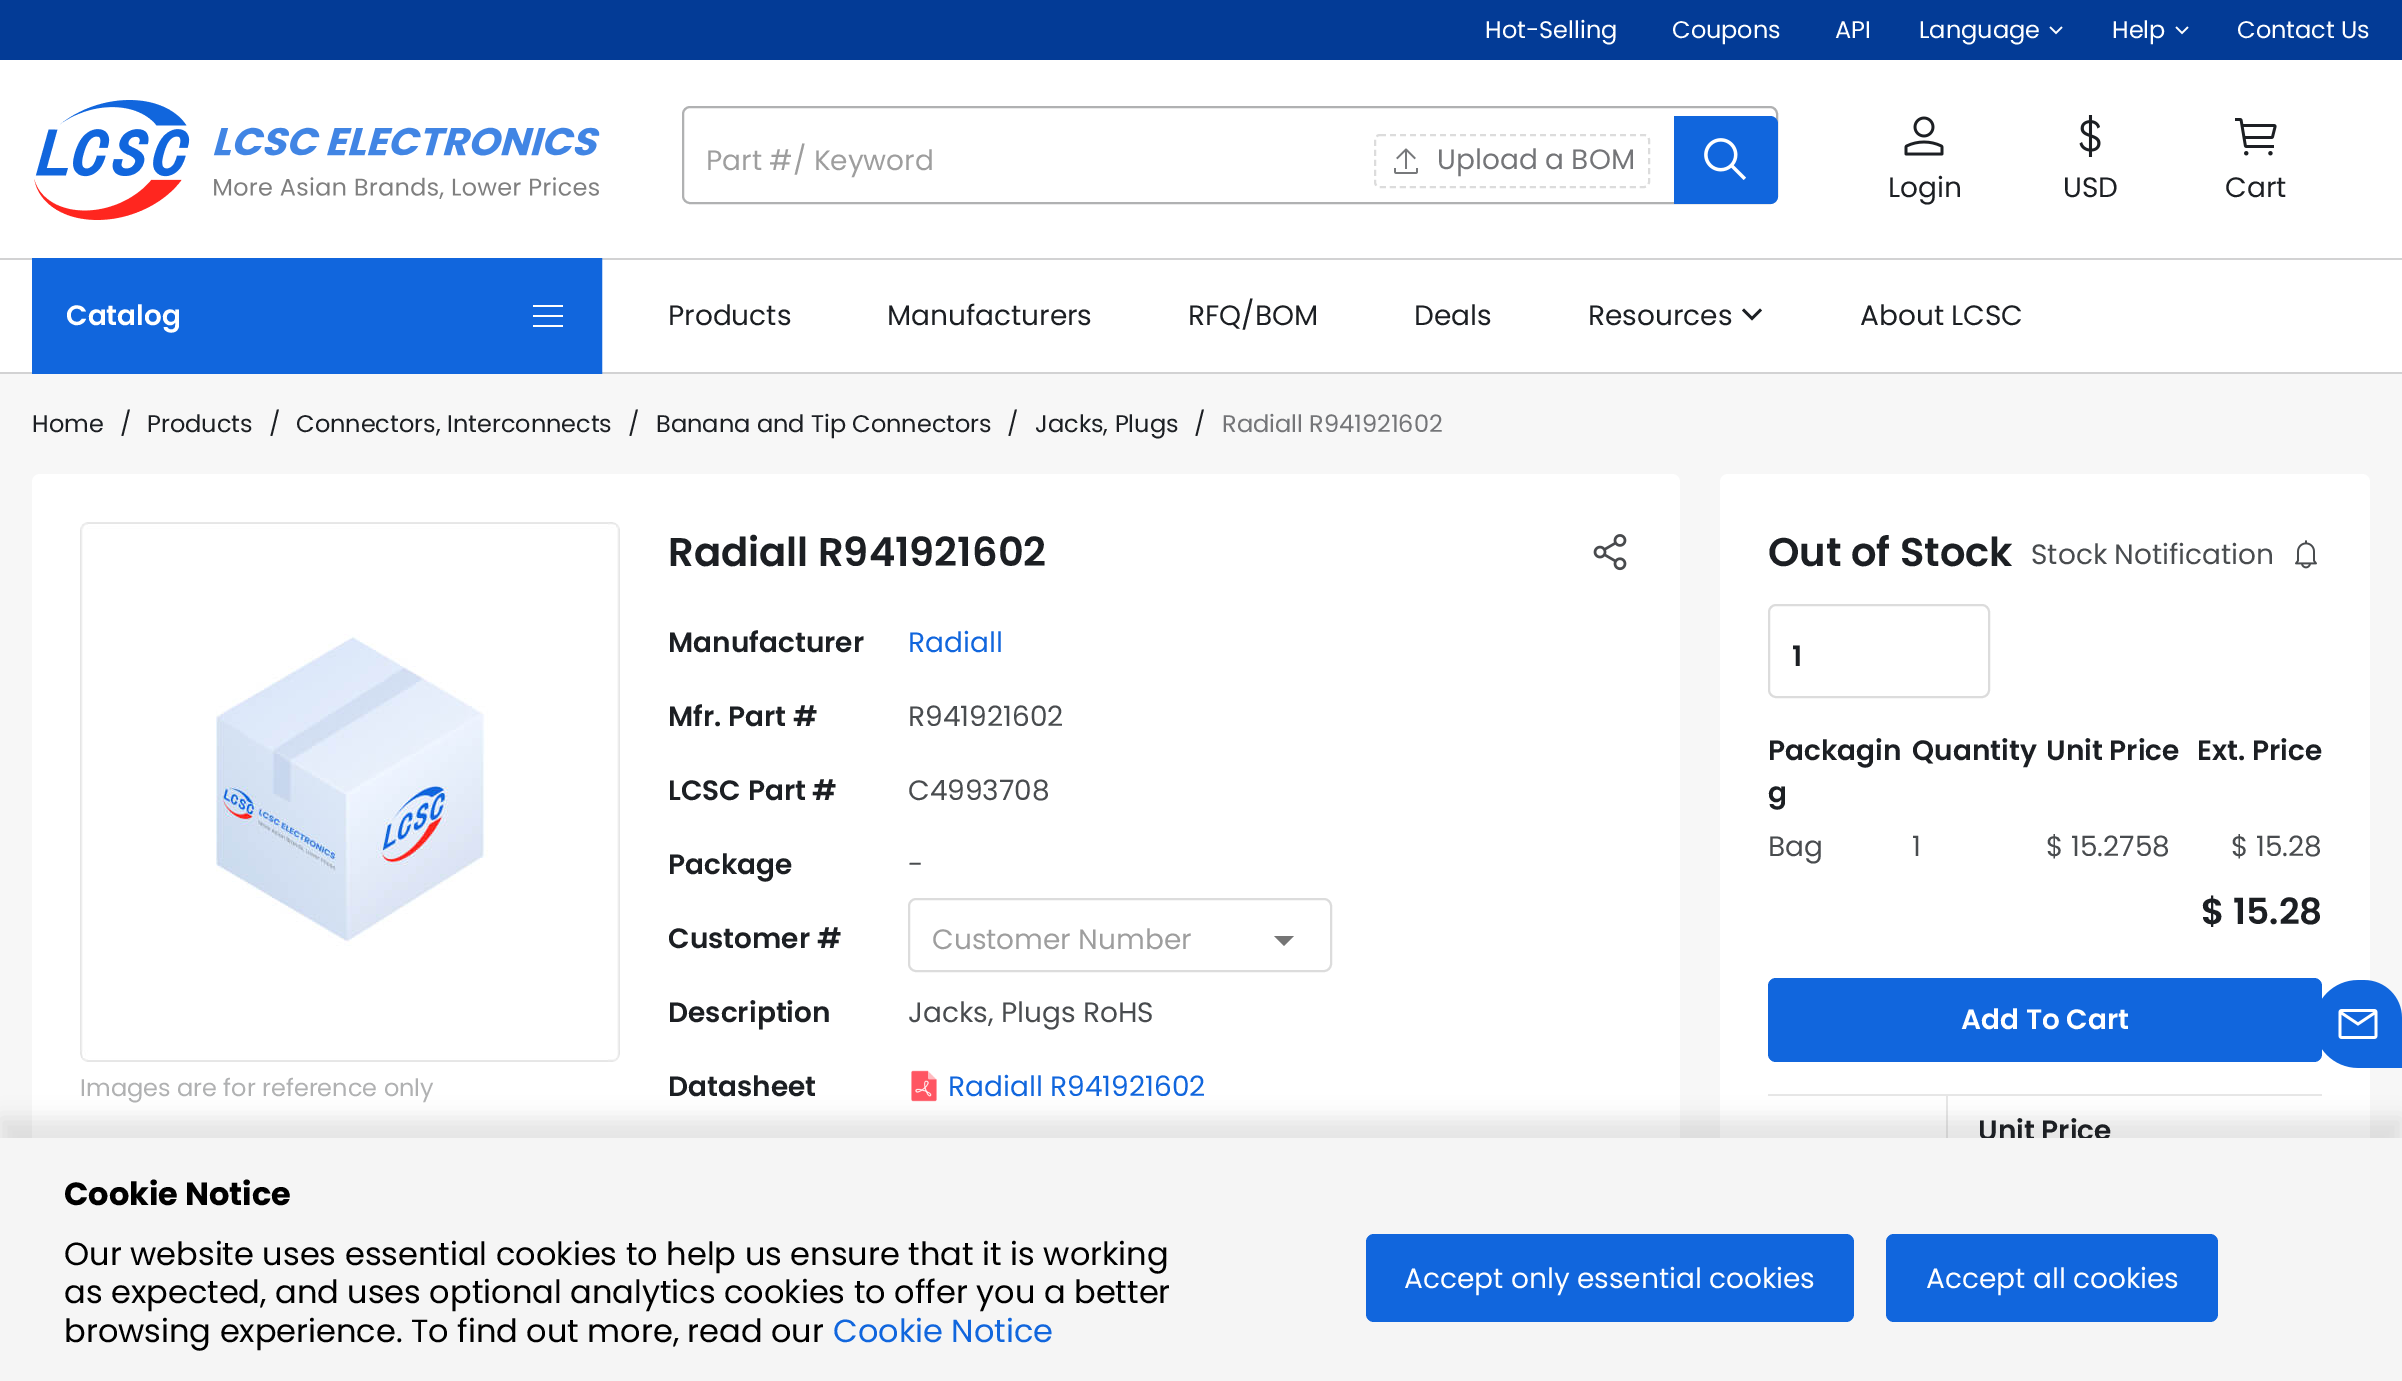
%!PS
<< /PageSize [2402 1381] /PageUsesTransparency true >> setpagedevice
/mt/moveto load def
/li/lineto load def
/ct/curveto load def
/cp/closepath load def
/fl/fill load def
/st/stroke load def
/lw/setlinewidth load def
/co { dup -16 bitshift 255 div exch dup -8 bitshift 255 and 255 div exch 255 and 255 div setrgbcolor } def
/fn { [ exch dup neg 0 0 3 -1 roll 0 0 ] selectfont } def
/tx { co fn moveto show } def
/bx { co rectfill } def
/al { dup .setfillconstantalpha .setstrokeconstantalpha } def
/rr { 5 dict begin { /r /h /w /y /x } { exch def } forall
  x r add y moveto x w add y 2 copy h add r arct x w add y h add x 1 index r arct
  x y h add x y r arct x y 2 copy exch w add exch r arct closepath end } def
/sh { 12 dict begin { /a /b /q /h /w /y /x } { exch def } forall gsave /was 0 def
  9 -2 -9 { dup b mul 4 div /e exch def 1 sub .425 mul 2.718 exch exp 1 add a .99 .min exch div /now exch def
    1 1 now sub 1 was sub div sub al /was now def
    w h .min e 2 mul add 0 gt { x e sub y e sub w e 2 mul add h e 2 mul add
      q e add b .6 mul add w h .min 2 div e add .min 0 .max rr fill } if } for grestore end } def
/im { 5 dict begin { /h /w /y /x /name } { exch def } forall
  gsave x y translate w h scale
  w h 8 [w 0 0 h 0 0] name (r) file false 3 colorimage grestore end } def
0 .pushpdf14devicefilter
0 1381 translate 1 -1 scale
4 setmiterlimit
0 0 2402 1381 16#FFFFFF bx
0 0 2402 60 16#033B96 bx
(media/1.raw) 2049 26 14 9 im
(media/1.raw) 2175 26 14 9 im
0 258 2402 2 16#D2D2D3 bx
(media/2.raw) 34 100 156 120 im
(media/3.raw) 213 127 387 72 im
16#B0B1B2 co
2 lw
683 107 1094 96 7 rr st
16#1166DD co
1674 116 mt 1770 116 li 1774.5 116 1778 119.5 1778 124 ct 1778 196 li 1778 200.5 1774.5 204 1770 204 ct 1674 204 li cp fl
(media/4.raw) 1704 138 42 42 im
16#DCDCDC co
[6 4] 0 setdash
1380 135 mt 1644 135 li 1647 135 1649 137 1649 140 ct 1649 182 li 1649 185 1647 187 1644 187 ct 1380 187 li 1377 187 1375 185 1375 182 ct 1375 140 li 1375 137 1377 135 1380 135 ct cp st
(media/5.raw) 1394 148 24 26 im
(media/6.raw) 1904 116 40 40 im
(media/7.raw) 2079 115 22 42 im
(media/8.raw) 2235 118 42 38 im
0 372 2402 2 16#D2D2D3 bx
16#1166DD co
[] 0 setdash
33 259 568 114 rectstroke
34 260 566 112 16#1166DD bx
533 305 30 2 16#FFFFFF bx
533 315 30 2 16#FFFFFF bx
533 325 30 2 16#FFFFFF bx
16#1C1F23 co
1742 310.5 mt 1744 308.5 li 1752 316.5 li 1760 308.5 li 1762 310.5 li 1752 320.5 li cp fl
0 374 2402 764 16#F7F7F7 bx
16#FFFFFF co
32 474 1648 778 8 rr fl
(media/9.raw) 80 522 540 540 im
(media/10.raw) 1593 534 34 37 im
16#DCDCDC co
909 899 422 72 7 rr st
16#757575 co
1274 936 mt 1284 946 li 1294 936 li cp fl
(media/11.raw) 911 1070 26 32 im
16#FFFFFF co
1720 474 650 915 8 rr fl
(media/12.raw) 2295 540 22 29 im
16#DCDCDC co
1769 605 220 92 7 rr st
16#1166DD co
1768 978 554 84 8 rr fl
1768 1094 554 2 16#E7E7E7 bx
1946 1094 2 44 16#E7E7E7 bx
(media/13.raw) 2322 980 80 88 im
16#000000 co
0 1118 2402 244 0 10 .1 sh
(Hot-Selling) 1485 38 /Poppins-Regular 24 16#FFFFFF tx
(Coupons) 1672 38 /Poppins-Regular 24 16#FFFFFF tx
(API) 1835 38 /Poppins-Regular 24 16#FFFFFF tx
(Language) 1919 38 /Poppins-Regular 24 16#FFFFFF tx
(Help) 2112 38 /Poppins-Regular 24 16#FFFFFF tx
(Contact Us) 2237 38 /Poppins-Regular 24 16#FFFFFF tx
(Part #/ Keyword) 706 170 /Poppins-Regular 28 16#9E9E9E tx
(Upload a BOM) 1437 169 /Poppins-Regular 28 16#747578 tx
(Login) 1888 197 /Poppins-Regular 28 16#1C1F23 tx
(USD) 2063 197 /Poppins-Regular 28 16#1C1F23 tx
(Cart) 2225 197 /Poppins-Regular 28 16#1C1F23 tx
(Catalog) 66 325 /Poppins-SemiBold 28 16#FFFFFF tx
(Products) 668 325 /Poppins-Regular 28 16#1C1F23 tx
(Manufacturers) 887 325 /Poppins-Regular 28 16#1C1F23 tx
(RFQ/BOM) 1188 325 /Poppins-Regular 28 16#1C1F23 tx
(Deals) 1414 325 /Poppins-Regular 28 16#1C1F23 tx
(Resources) 1588 325 /Poppins-Regular 28 16#1C1F23 tx
(About LCSC) 1860 325 /Poppins-Regular 28 16#1C1F23 tx
(Home) 32 432 /Poppins-Regular 24 16#1C1F23 tx
(/) 120 432 /Poppins-Regular 24 16#1C1F23 tx
(Products) 147 432 /Poppins-Regular 24 16#1C1F23 tx
(/) 269 432 /Poppins-Regular 24 16#1C1F23 tx
(Connectors, Interconnects) 296 432 /Poppins-Regular 24 16#1C1F23 tx
(/) 628 432 /Poppins-Regular 24 16#1C1F23 tx
(Banana and Tip Connectors) 656 432 /Poppins-Regular 24 16#1C1F23 tx
(/) 1007 432 /Poppins-Regular 24 16#1C1F23 tx
(Jacks, Plugs) 1035 432 /Poppins-Regular 24 16#1C1F23 tx
(/) 1194 432 /Poppins-Regular 24 16#1C1F23 tx
(Radiall R941921602) 1222 432 /Poppins-Regular 24 16#747578 tx
(Images are for reference only) 80 1096 /Poppins-Regular 24 16#B0B1B2 tx
(Radiall R941921602) 668 566 /Poppins-SemiBold 40 16#1C1F23 tx
(Manufacturer) 668 652 /Poppins-SemiBold 28 16#1C1F23 tx
(Radiall) 908 652 /Poppins-Regular 28 16#1166DD tx
(Mfr. Part #) 668 726 /Poppins-SemiBold 28 16#1C1F23 tx
(R941921602) 908 726 /Poppins-Regular 28 16#494C4F tx
(LCSC Part #) 668 800 /Poppins-SemiBold 28 16#1C1F23 tx
(C4993708) 908 800 /Poppins-Regular 28 16#494C4F tx
(Package) 668 874 /Poppins-SemiBold 28 16#1C1F23 tx
(-) 908 874 /Poppins-Regular 28 16#494C4F tx
(Customer #) 668 948 /Poppins-SemiBold 28 16#1C1F23 tx
(Customer Number) 932 949 /Poppins-Regular 28 16#9E9E9E tx
(Description) 668 1022 /Poppins-SemiBold 28 16#1C1F23 tx
(Jacks, Plugs RoHS) 908 1022 /Poppins-Regular 28 16#494C4F tx
(Datasheet) 668 1096 /Poppins-SemiBold 28 16#1C1F23 tx
(Radiall R941921602) 948 1096 /Poppins-Regular 28 16#1166DD tx
(Out of Stock) 1768 566 /Poppins-SemiBold 40 16#1C1F23 tx
(Stock Notification) 2031 564 /Poppins-Regular 28 16#494C4F tx
(1) 1792 666 /Poppins-SemiBold 28 16#1C1F23 tx
(Packagin) 1768 760 /Poppins-SemiBold 28 16#1C1F23 tx
(g) 1768 802 /Poppins-SemiBold 28 16#1C1F23 tx
(Quantity) 1912 760 /Poppins-SemiBold 28 16#1C1F23 tx
(Unit Price) 2046 760 /Poppins-SemiBold 28 16#1C1F23 tx
(Ext. Price) 2197 760 /Poppins-SemiBold 28 16#1C1F23 tx
(Bag) 1768 856 /Poppins-Regular 28 16#494C4F tx
(1) 1912 856 /Poppins-Regular 28 16#494C4F tx
($ 15.2758) 2046 856 /Poppins-Regular 28 16#494C4F tx
($ 15.28) 2231 856 /Poppins-Regular 28 16#494C4F tx
($ 15.28) 2201 924 /Poppins-SemiBold 36 16#1C1F23 tx
(Add To Cart) 1961 1029 /Poppins-SemiBold 28 16#FFFFFF tx
(Unit Price) 1978 1140 /Poppins-SemiBold 28 16#1C1F23 tx
0 1138 2402 243 16#F5F5F5 bx
(Cookie Notice) 64 1205 /Poppins-Bold 32 16#000000 tx
(Our website uses essential cookies to help us ensure that it is working) 64 1265 /Poppins-Regular 32 16#000000 tx
(as expected, and uses optional analytics cookies to offer you a better) 64 1303 /Poppins-Regular 32 16#000000 tx
(browsing experience. To find out more, read our) 64 1342 /Poppins-Regular 32 16#000000 tx
(Cookie Notice) 833 1342 /Poppins-Regular 32 16#1166DD tx
1366 1234 488 88 8 rr fl
(Accept only essential cookies) 1404 1288 /Poppins-Regular 28 16#FFFFFF tx
16#1166DD co
1886 1234 332 88 8 rr fl
(Accept all cookies) 1926 1288 /Poppins-Regular 28 16#FFFFFF tx
.poppdf14devicefilter showpage
